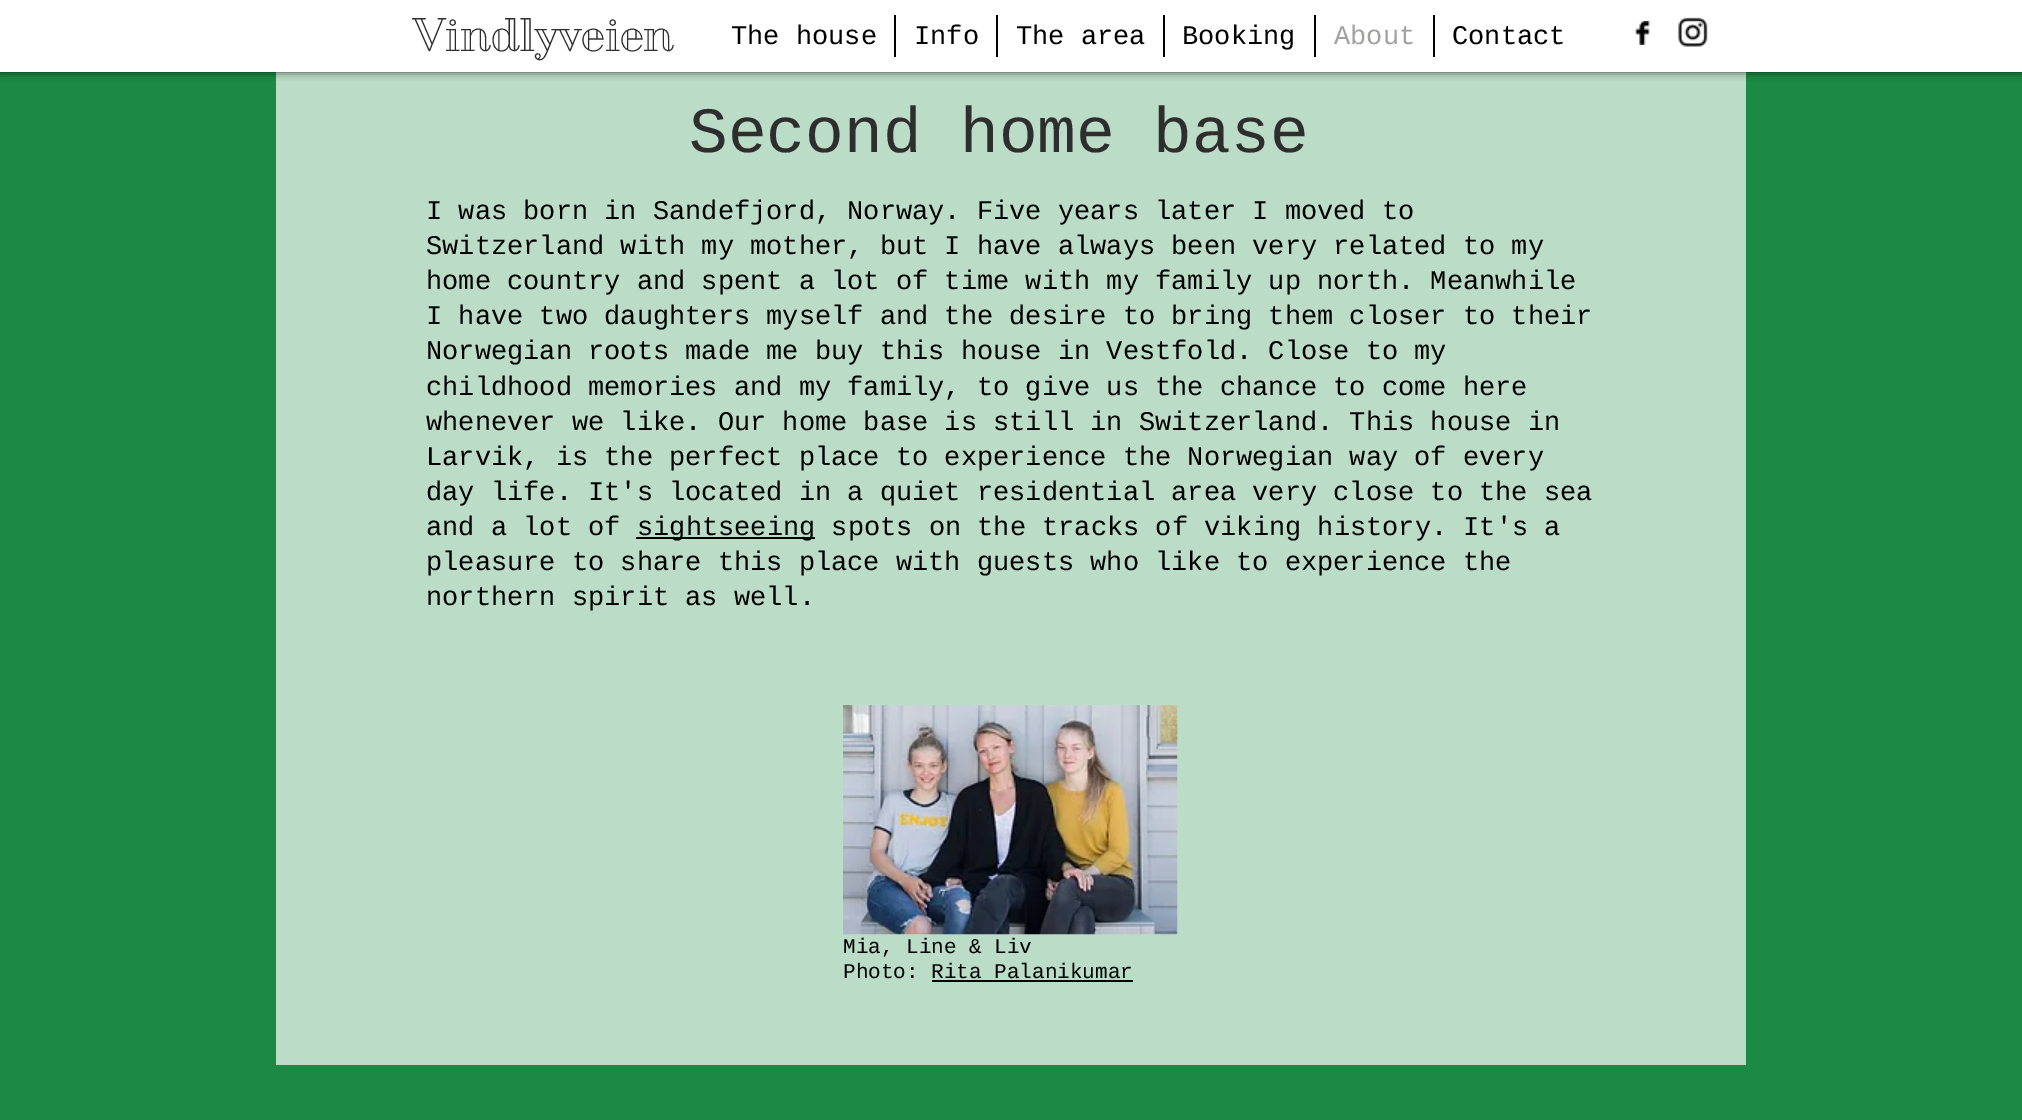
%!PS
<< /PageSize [2022 1120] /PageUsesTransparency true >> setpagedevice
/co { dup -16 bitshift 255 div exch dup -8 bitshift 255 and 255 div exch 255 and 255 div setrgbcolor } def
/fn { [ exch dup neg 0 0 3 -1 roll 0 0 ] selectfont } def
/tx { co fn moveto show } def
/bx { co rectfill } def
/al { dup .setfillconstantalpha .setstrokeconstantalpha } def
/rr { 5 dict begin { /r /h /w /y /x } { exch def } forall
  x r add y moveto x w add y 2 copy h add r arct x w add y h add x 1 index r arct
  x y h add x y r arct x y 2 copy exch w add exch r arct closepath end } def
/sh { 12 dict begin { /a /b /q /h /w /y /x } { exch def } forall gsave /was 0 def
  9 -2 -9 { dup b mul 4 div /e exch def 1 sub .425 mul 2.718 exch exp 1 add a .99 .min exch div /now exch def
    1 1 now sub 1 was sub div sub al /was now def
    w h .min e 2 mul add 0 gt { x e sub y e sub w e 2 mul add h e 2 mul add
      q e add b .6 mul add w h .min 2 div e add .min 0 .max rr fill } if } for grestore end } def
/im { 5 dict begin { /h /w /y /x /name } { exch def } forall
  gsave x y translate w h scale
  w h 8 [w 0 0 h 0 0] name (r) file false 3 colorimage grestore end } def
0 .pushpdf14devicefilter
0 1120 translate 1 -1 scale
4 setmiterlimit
0 0 2022 1120 16#1C8A43 bx
276 72 1470 993 16#BBDCC6 bx
16#000000 co
0 0 2022 72 0 4 .7 sh
0 0 2022 72 16#FFFFFF bx
894 15 2 42 16#000000 bx
996 15 2 42 16#000000 bx
1163 15 2 42 16#000000 bx
1314 15 2 42 16#000000 bx
1433 15 2 42 16#000000 bx
(media/1.raw) 1634 21 17 24 im
(media/2.raw) 1678 17 30 30 im
636 537 179 2 16#000000 bx
(media/3.raw) 843 705 335 230 im
932 980 201 2 16#000000 bx
(Vindlyveien) 413 51 /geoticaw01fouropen-Bold 43.5 16#2F2E2E tx
(The house) 731 44 /LiberationMono-Regular 27 16#000000 tx
(Info) 914 44 /LiberationMono-Regular 27 16#000000 tx
(The area) 1016 44 /LiberationMono-Regular 27 16#000000 tx
(Booking) 1182 44 /LiberationMono-Regular 27 16#000000 tx
(About) 1334 44 /LiberationMono-Regular 27 16#A0A09F tx
(Contact) 1452 44 /LiberationMono-Regular 27 16#000000 tx
(Second home base) 689 152 /LiberationMono-Regular 64.5 16#2F2E2E tx
(I was born in Sandefjord, Norway. Five years later I moved to) 426 219 /LiberationMono-Regular 27 16#000000 tx
(Switzerland with my mother, but I have always been very related to my) 426 254 /LiberationMono-Regular 27 16#000000 tx
(home country and spent a lot of time with my family up north. Meanwhile) 426 289 /LiberationMono-Regular 27 16#000000 tx
(I have two daughters myself and the desire to bring them closer to their) 426 324 /LiberationMono-Regular 27 16#000000 tx
(Norwegian roots made me buy this house in Vestfold. Close to my) 426 359 /LiberationMono-Regular 27 16#000000 tx
(childhood memories and my family, to give us the chance to come here) 426 395 /LiberationMono-Regular 27 16#000000 tx
(whenever we like. Our home base is still in Switzerland. This house in) 426 430 /LiberationMono-Regular 27 16#000000 tx
(Larvik, is the perfect place to experience the Norwegian way of every) 426 465 /LiberationMono-Regular 27 16#000000 tx
(day life. It's located in a quiet residential area very close to the sea) 426 500 /LiberationMono-Regular 27 16#000000 tx
(and a lot of) 426 535 /LiberationMono-Regular 27 16#000000 tx
(sightseeing spots on the tracks of viking history. It's a) 637 535 /LiberationMono-Regular 27 16#000000 tx
(pleasure to share this place with guests who like to experience the) 426 570 /LiberationMono-Regular 27 16#000000 tx
(northern spirit as well.) 426 605 /LiberationMono-Regular 27 16#000000 tx
(Mia, Line & Liv) 843 953 /LiberationMono-Regular 21 16#000000 tx
(Photo: Rita Palanikumar) 843 978 /LiberationMono-Regular 21 16#000000 tx
.poppdf14devicefilter showpage
